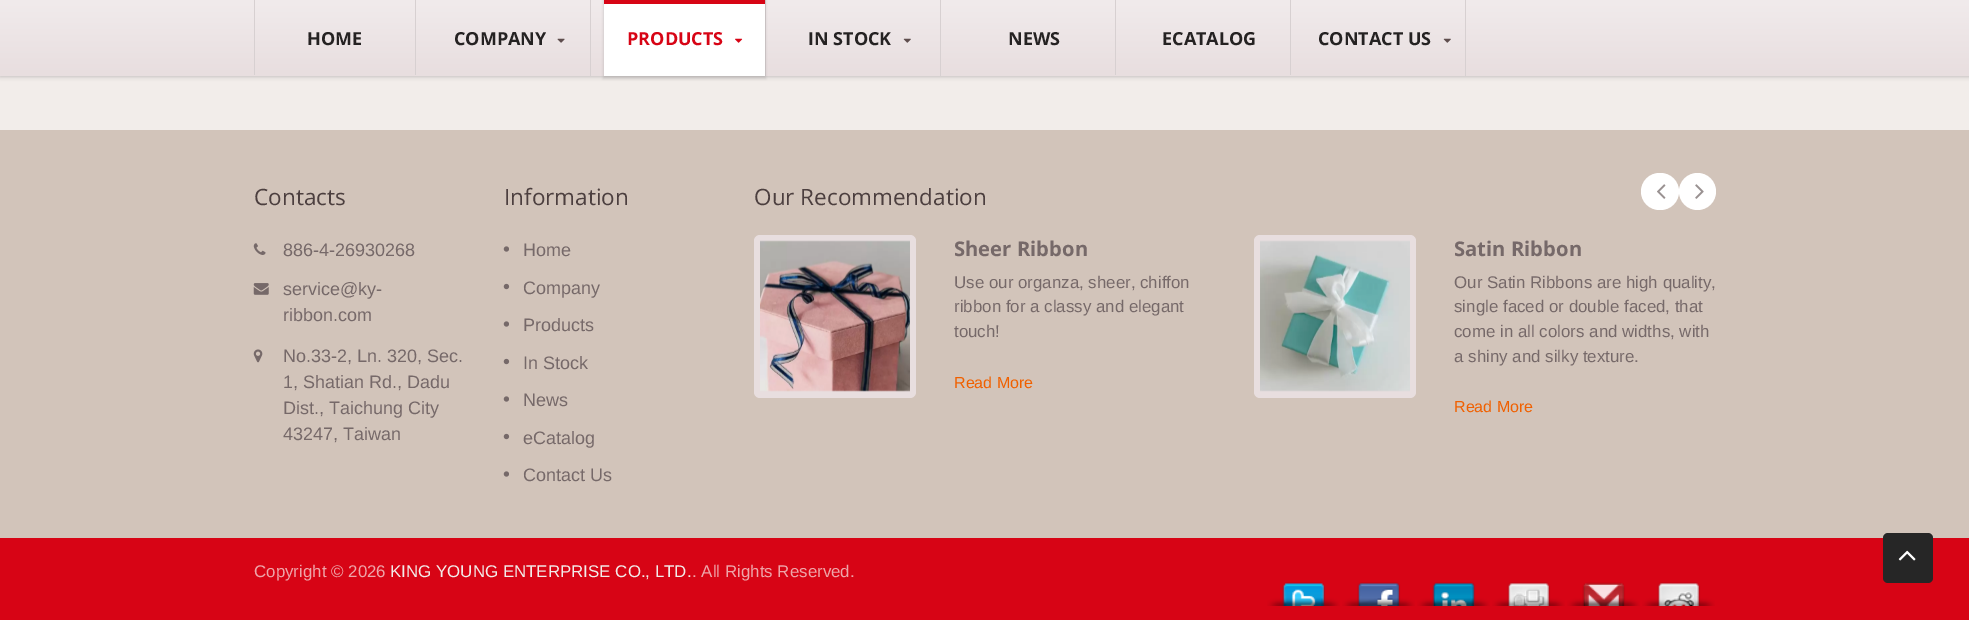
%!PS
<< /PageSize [1969 620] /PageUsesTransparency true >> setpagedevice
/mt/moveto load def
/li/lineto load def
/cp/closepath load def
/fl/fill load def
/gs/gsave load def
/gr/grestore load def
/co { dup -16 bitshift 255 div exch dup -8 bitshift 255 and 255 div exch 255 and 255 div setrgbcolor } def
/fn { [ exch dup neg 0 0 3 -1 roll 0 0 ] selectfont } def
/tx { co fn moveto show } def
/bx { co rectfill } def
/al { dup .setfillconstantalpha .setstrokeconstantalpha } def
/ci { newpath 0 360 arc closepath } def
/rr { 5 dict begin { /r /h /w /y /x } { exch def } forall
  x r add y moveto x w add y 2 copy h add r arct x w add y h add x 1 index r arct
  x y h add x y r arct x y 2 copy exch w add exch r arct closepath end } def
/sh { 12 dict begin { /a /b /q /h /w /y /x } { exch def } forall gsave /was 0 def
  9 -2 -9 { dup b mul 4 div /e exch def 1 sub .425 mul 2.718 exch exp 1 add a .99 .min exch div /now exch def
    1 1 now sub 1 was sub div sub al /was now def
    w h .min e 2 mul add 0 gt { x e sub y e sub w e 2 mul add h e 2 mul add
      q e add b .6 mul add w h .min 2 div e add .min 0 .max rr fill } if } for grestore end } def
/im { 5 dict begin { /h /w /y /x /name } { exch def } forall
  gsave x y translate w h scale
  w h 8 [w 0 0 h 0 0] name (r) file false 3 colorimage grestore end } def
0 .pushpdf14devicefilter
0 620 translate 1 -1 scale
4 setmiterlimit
0 0 1969 620 16#D70415 bx
0 76 1969 54 16#F2EDEA bx
16#000000 co
0 0 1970 76 0 2.5 .25 sh
gs 0 0 mt 1969 0 li 1969 76 li 0 76 li cp clip newpath
<< /ShadingType 2 /ColorSpace /DeviceRGB /Coords [985 0 985 76] /Extend [true true] /Function << /FunctionType 2 /Domain [0 1] /C0 [.945 .922 .925] /C1 [.91 .871 .875] /N 1 >> >> shfill gr
415 0 1 75 16#D7D0D1 bx
254 0 1 75 16#D7D0D1 bx
590 0 1 76 16#D7D0D1 bx
(media/1.raw) 557 38 8 5 im
765 0 1 76 16#D7D0D1 bx
16#000000 co
603 0 163 79 0 1 .1 sh
604 4 161 72 16#FFFFFF bx
604 0 161 4 16#D70415 bx
(media/2.raw) 735 38 8 5 im
940 0 1 76 16#D7D0D1 bx
(media/3.raw) 903 38 8 5 im
1115 0 1 75 16#D7D0D1 bx
1290 0 1 75 16#D7D0D1 bx
1465 0 1 76 16#D7D0D1 bx
(media/3.raw) 1443 38 8 5 im
0 130 1969 408 16#D2C4BA bx
(media/4.raw) 253 243 13 12 im
(media/5.raw) 253 283 16 12 im
(media/6.raw) 253 349 10 14 im
(media/7.raw) 503 246 6 6 im
(media/8.raw) 503 283 7 7 im
(media/7.raw) 503 321 6 6 im
(media/8.raw) 503 358 7 7 im
(media/7.raw) 503 396 6 6 im
(media/8.raw) 503 433 7 7 im
(media/7.raw) 503 471 6 6 im
16#FFFFFF co
1641 173 38 37 18.5 rr fl
(media/9.raw) 1657 184 9 15 im
1697.5 191.5 18.5 ci fl
(media/10.raw) 1695 184 9 15 im
16#E8DEDF co
754 235 162 163 6 rr fl
(media/11.raw) 760 240 150 152 im
1254 235 162 163 6 rr fl
(media/12.raw) 1260 240 150 152 im
(media/13.raw) 1267 582 73 24 im
(media/14.raw) 1342 582 73 24 im
(media/15.raw) 1417 582 73 24 im
(media/16.raw) 1492 582 73 24 im
(media/17.raw) 1567 582 73 24 im
(media/18.raw) 1642 582 73 24 im
16#262626 co
1883 533 50 50 5 rr fl
(media/19.raw) 1898 550 18 11 im
(HOME) 307 45 /OpenSans-Bold 18 16#252222 tx
(COMPANY) 454 45 /OpenSans-Bold 18 16#252222 tx
(PRODUCTS) 627 45 /OpenSans-Bold 18 16#D70415 tx
(IN STOCK) 808 45 /OpenSans-Bold 18 16#252222 tx
(NEWS) 1008 45 /OpenSans-Bold 18 16#252222 tx
(ECATALOG) 1162 45 /OpenSans-Bold 18 16#252222 tx
(CONTACT US) 1318 45 /OpenSans-Bold 18 16#252222 tx
(Contacts) 254 205 /OpenSans-Regular 22.5 16#4C3F3F tx
(886-4-26930268) 283 256 /LiberationSans-Regular 18 16#766969 tx
(service@ky-) 283 295 /LiberationSans-Regular 18 16#766969 tx
(ribbon.com) 283 321 /LiberationSans-Regular 18 16#766969 tx
(No.33-2, Ln. 320, Sec.) 283 362 /LiberationSans-Regular 18 16#766969 tx
(1, Shatian Rd., Dadu) 283 388 /LiberationSans-Regular 18 16#766969 tx
(Dist., Taichung City) 283 414 /LiberationSans-Regular 18 16#766969 tx
(43247, Taiwan) 283 440 /LiberationSans-Regular 18 16#766969 tx
(Information) 504 205 /OpenSans-Regular 22.5 16#4C3F3F tx
(Home) 523 256 /LiberationSans-Regular 18 16#766969 tx
(Company) 523 294 /LiberationSans-Regular 18 16#766969 tx
(Products) 523 331 /LiberationSans-Regular 18 16#766969 tx
(In Stock) 523 369 /LiberationSans-Regular 18 16#766969 tx
(News) 523 406 /LiberationSans-Regular 18 16#766969 tx
(eCatalog) 523 444 /LiberationSans-Regular 18 16#766969 tx
(Contact Us) 523 481 /LiberationSans-Regular 18 16#766969 tx
(Our Recommendation) 754 205 /OpenSans-Regular 22.5 16#4C3F3F tx
(Sheer Ribbon) 954 256 /OpenSans-Bold 20.25 16#766969 tx
(Use our organza, sheer, chiffon) 954 288 /LiberationSans-Regular 16.9 16#766969 tx
(ribbon for a classy and elegant) 954 312 /LiberationSans-Regular 16.9 16#766969 tx
(touch!) 954 337 /LiberationSans-Regular 16.9 16#766969 tx
(Read More) 954 388 /LiberationSans-Regular 16 16#F06000 tx
(Satin Ribbon) 1454 256 /OpenSans-Bold 20.25 16#766969 tx
(Our Satin Ribbons are high quality,) 1454 288 /LiberationSans-Regular 16.9 16#766969 tx
(single faced or double faced, that) 1454 312 /LiberationSans-Regular 16.9 16#766969 tx
(come in all colors and widths, with) 1454 337 /LiberationSans-Regular 16.9 16#766969 tx
(a shiny and silky texture.) 1454 362 /LiberationSans-Regular 16.9 16#766969 tx
(Read More) 1454 412 /LiberationSans-Regular 16 16#F06000 tx
(Copyright © 2026) 254 577 /LiberationSans-Regular 16.9 16#EEA5A9 tx
(KING YOUNG ENTERPRISE CO., LTD.) 390 577 /LiberationSans-Regular 16.9 16#F2EDEA tx
(. All Rights Reserved.) 692 577 /LiberationSans-Regular 16.9 16#EEA5A9 tx
.poppdf14devicefilter showpage
